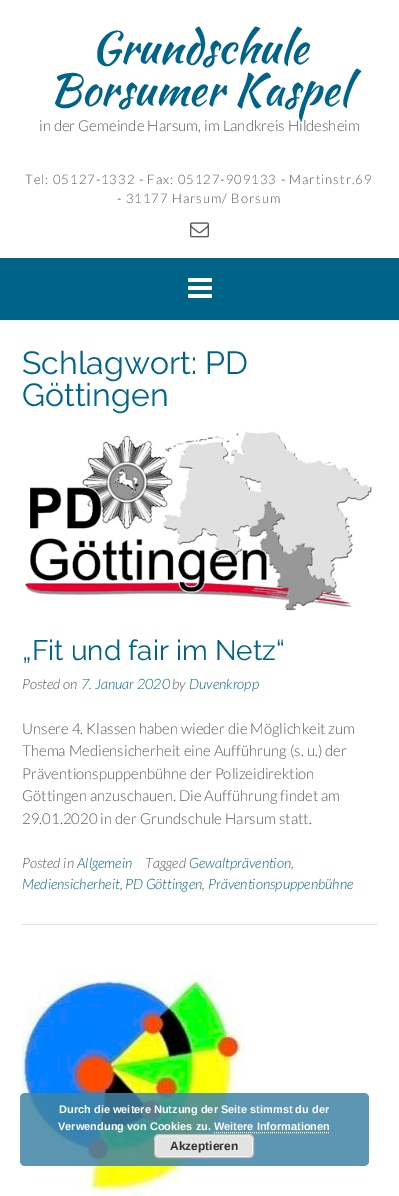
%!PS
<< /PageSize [399 1196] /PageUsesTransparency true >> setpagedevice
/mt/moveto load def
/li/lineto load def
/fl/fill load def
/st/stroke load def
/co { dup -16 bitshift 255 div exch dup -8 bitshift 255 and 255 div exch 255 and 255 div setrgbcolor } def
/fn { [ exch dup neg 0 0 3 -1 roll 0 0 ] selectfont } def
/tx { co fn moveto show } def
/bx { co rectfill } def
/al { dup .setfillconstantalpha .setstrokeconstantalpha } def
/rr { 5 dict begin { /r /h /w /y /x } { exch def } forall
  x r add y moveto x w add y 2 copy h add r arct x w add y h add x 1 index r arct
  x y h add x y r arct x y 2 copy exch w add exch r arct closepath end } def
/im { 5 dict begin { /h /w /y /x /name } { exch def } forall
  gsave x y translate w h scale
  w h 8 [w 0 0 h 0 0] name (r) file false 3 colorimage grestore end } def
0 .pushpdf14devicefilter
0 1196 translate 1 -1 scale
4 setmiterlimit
0 0 399 1196 16#FFFFFF bx
(media/1.raw) 190 222 19 16 im
0 258 399 62 16#006489 bx
(media/2.raw) 188 278 24 20 im
22 924 355 1 16#E0E0E0 bx
(media/3.raw) 25 431 347 180 im
(media/4.raw) 22 975 223 221 im
0.85 al
16#3F84A4 co
20 1093 349 73 5 rr fl
1 al
16#FFFFFF co
[1 1] 0 setdash
214 1132.5 mt 330 1132.5 li st
16#E3E3E3 co
154 1134 100 24 5 rr fl
16#F6F6F6 co
[] 0 setdash
155.5 1135.5 97 21 3.5 rr st
16#BBBBBB co
154.5 1134.5 99 23 4.5 rr st
(Grundschule) 91 63 /KaushanScript-Regular 44 16#006489 tx
(Borsumer Kaspel) 49 105 /KaushanScript-Regular 44 16#006489 tx
(in der Gemeinde Harsum, im Landkreis Hildesheim) 39 131 /Lato-Light 15 16#58585A tx
/Lato-Light 13 fn
25 184 mt 1 0 (Tel: 05127-1332 - Fax: 05127-909133 - Martinstr.69) ashow
117 203 mt 1 0 (- 31177 Harsum/ Borsum) ashow
(Schlagwort: PD) 22 374 /Raleway-Regular 32 16#006489 tx
(Göttingen) 22 406 /Raleway-Regular 32 16#006489 tx
(„Fit und fair im Netz“) 22 660 /Raleway-Regular 28 16#006489 tx
(Posted on) 22 689 /Lato-LightItalic 14.25 16#58585A tx
(7. Januar 2020) 81 689 /Lato-LightItalic 14.25 16#006489 tx
(by) 172 689 /Lato-LightItalic 14.25 16#58585A tx
(Duvenkropp) 189 689 /Lato-LightItalic 14.25 16#006489 tx
(Unsere 4. Klassen haben wieder die Möglichkeit zum) 22 734 /Lato-Light 15 16#58585A tx
(Thema Mediensicherheit eine Aufführung \(s. u.\) der) 22 756 /Lato-Light 15 16#58585A tx
(Präventionspuppenbühne der Polizeidirektion) 22 779 /Lato-Light 15 16#58585A tx
(Göttingen anzuschauen. Die Aufführung findet am) 22 801 /Lato-Light 15 16#58585A tx
(29.01.2020 in der Grundschule Harsum statt.) 22 824 /Lato-Light 15 16#58585A tx
(Posted in) 22 868 /Lato-LightItalic 14.25 16#58585A tx
(Allgemein) 77 868 /Lato-LightItalic 14.25 16#006489 tx
(Tagged) 145 868 /Lato-LightItalic 14.25 16#58585A tx
(Gewaltprävention) 189 868 /Lato-LightItalic 14.25 16#006489 tx
(,) 291 868 /Lato-LightItalic 14.25 16#58585A tx
(Mediensicherheit) 22 889 /Lato-LightItalic 14.25 16#006489 tx
(,) 120 889 /Lato-LightItalic 14.25 16#58585A tx
(PD Göttingen) 125 889 /Lato-LightItalic 14.25 16#006489 tx
(,) 202 889 /Lato-LightItalic 14.25 16#58585A tx
(Präventionspuppenbühne) 208 889 /Lato-LightItalic 14.25 16#006489 tx
(Durch die weitere Nutzung der Seite stimmst du der) 59 1113 /LiberationSans-Bold 11 16#FFFFFF tx
(Verwendung von Cookies zu. Weitere Informationen) 58 1130 /LiberationSans-Bold 11 16#FFFFFF tx
(Akzeptieren) 170 1150 /LiberationSans-Bold 12 16#333333 tx
.poppdf14devicefilter showpage
